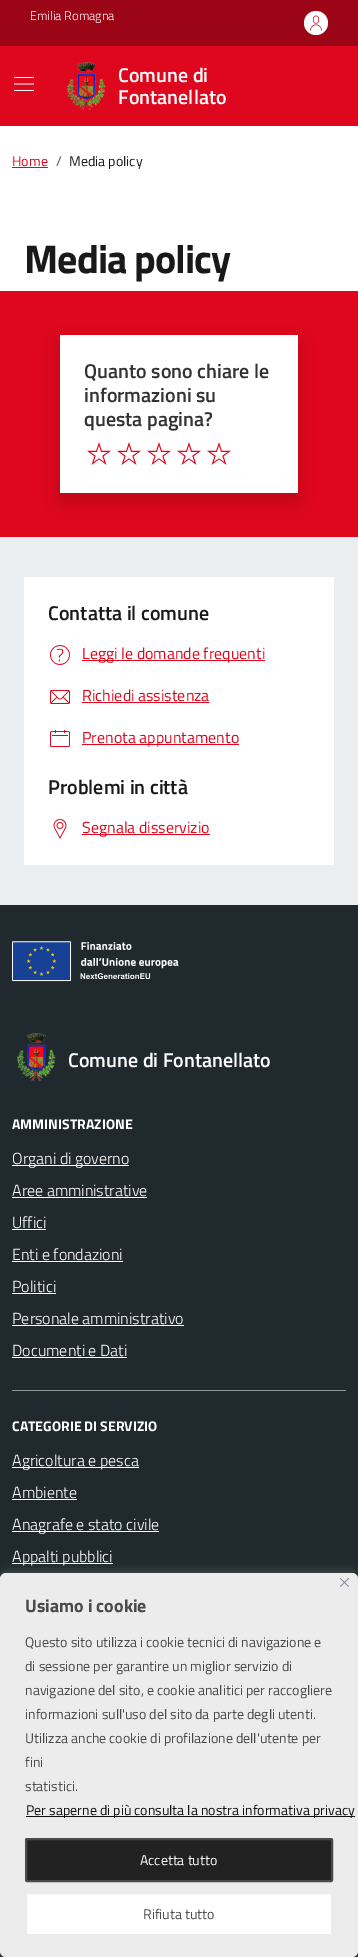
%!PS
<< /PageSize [358 1957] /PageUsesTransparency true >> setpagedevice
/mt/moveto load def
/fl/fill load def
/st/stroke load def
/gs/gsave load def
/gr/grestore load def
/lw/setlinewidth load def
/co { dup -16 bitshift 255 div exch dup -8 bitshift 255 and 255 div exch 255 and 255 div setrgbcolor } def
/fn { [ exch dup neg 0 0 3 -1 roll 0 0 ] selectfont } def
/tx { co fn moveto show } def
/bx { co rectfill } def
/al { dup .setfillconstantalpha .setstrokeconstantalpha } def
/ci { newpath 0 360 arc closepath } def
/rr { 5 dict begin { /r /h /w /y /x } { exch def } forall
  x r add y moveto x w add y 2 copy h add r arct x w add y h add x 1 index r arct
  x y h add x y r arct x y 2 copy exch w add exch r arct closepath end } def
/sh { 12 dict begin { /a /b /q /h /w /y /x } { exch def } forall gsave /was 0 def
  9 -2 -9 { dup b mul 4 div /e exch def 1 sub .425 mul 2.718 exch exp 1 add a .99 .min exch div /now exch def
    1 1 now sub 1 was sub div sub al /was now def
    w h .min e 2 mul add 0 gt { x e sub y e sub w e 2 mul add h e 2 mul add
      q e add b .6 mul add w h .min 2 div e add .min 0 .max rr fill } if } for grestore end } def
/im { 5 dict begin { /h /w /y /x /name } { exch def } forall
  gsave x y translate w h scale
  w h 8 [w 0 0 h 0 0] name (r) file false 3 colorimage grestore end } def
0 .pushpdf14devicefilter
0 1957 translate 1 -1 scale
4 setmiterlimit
0 0 358 1957 16#FFFFFF bx
0 46 358 80 16#DE071D bx
0 0 358 46 16#9C0515 bx
16#FFFFFF co
316 23 12 ci fl
(media/1.raw) 310 15 12 16 im
(media/2.raw) 14 77 20 14 im
(media/3.raw) 67 62 39 48 im
12 167 36 1 16#DE071D bx
0 291 358 246 16#DE071D bx
16#000000 co
60 343 238 158 0 8 .15 sh
60 335 238 158 16#FFFFFF bx
(media/4.raw) 87 442 24 23 im
(media/4.raw) 117 442 24 23 im
(media/4.raw) 147 442 24 23 im
(media/4.raw) 177 442 24 23 im
(media/4.raw) 207 442 24 23 im
0 537 358 368 16#EBEEF0 bx
24 577 310 288 16#FFFFFF bx
(media/5.raw) 50 645 20 20 im
82 660 183 1 16#DE071D bx
(media/6.raw) 50 690 20 14 im
82 702 127 1 16#DE071D bx
(media/7.raw) 50 730 20 17 im
82 744 157 1 16#DE071D bx
(media/8.raw) 53 819 14 20 im
82 834 128 1 16#DE071D bx
0 905 358 1052 16#202A2E bx
(media/9.raw) 12 941 167 41 im
(media/10.raw) 16 1033 40 48 im
12 1165 117 1 16#FFFFFF bx
12 1197 135 1 16#FFFFFF bx
12 1229 34 1 16#FFFFFF bx
12 1261 111 1 16#FFFFFF bx
12 1293 44 1 16#FFFFFF bx
12 1325 172 1 16#FFFFFF bx
12 1357 115 1 16#FFFFFF bx
12 1390 334 1 16#909597 bx
12 1467 127 1 16#FFFFFF bx
12 1499 65 1 16#FFFFFF bx
12 1531 147 1 16#FFFFFF bx
12 1563 101 1 16#FFFFFF bx
16#ACABAB co
0 1572 358 384 6 5 .3 sh
16#ECECEC co
.5 1573.5 357 383 5.5 rr gs fl gr
16#EBEBEB co
st
(media/11.raw) 340 1578 9 9 im
26 1816 329 1 16#111111 bx
16#222222 co
26 1839 306 42 1 rr gs fl gr
16#4A4A4A co
2 lw
st
16#FFFFFF co
26 1893 306 42 1 rr gs fl gr
16#ECECEC co
st
(Emilia Romagna) 30 20 /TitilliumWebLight-Light 12.5 16#FFFFFF tx
(Comune di) 118 82 /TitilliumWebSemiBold-SemiBold 20 16#FFFFFF tx
(Fontanellato) 118 104 /TitilliumWebSemiBold-SemiBold 20 16#FFFFFF tx
(Home) 12 166 /TitilliumWeb-Regular 14 16#DE071D tx
(/) 56 166 /TitilliumWeb-Regular 14 16#525252 tx
(Media policy) 69 166 /TitilliumWeb-Regular 14 16#191919 tx
/TitilliumWeb-Bold 40 fn
24 273 mt -1 0 (Media policy) ashow
(Quanto sono chiare le) 84 378 /TitilliumWebSemiBold-SemiBold 20 16#333333 tx
(informazioni su) 84 402 /TitilliumWebSemiBold-SemiBold 20 16#333333 tx
(questa pagina?) 84 426 /TitilliumWebSemiBold-SemiBold 20 16#333333 tx
(Contatta il comune) 48 620 /TitilliumWebSemiBold-SemiBold 20 16#191919 tx
(Leggi le domande frequenti) 82 659 /TitilliumWeb-Regular 16 16#DE071D tx
(Richiedi assistenza) 82 701 /TitilliumWeb-Regular 16 16#DE071D tx
(Prenota appuntamento) 82 743 /TitilliumWeb-Regular 16 16#DE071D tx
(Problemi in città) 48 794 /TitilliumWebSemiBold-SemiBold 20 16#191919 tx
(Segnala disservizio) 82 833 /TitilliumWeb-Regular 16 16#DE071D tx
(Comune di Fontanellato) 68 1067 /TitilliumWebSemiBold-SemiBold 20 16#FFFFFF tx
(AMMINISTRAZIONE) 12 1129 /TitilliumWeb-Bold 14 16#FFFFFF tx
(Organi di governo) 12 1164 /TitilliumWebLight-Light 16 16#FFFFFF tx
(Aree amministrative) 12 1196 /TitilliumWebLight-Light 16 16#FFFFFF tx
(Uffici) 12 1228 /TitilliumWebLight-Light 16 16#FFFFFF tx
(Enti e fondazioni) 12 1260 /TitilliumWebLight-Light 16 16#FFFFFF tx
(Politici) 12 1292 /TitilliumWebLight-Light 16 16#FFFFFF tx
(Personale amministrativo) 12 1324 /TitilliumWebLight-Light 16 16#FFFFFF tx
(Documenti e Dati) 12 1356 /TitilliumWebLight-Light 16 16#FFFFFF tx
(CATEGORIE DI SERVIZIO) 12 1431 /TitilliumWeb-Bold 14 16#FFFFFF tx
(Agricoltura e pesca) 12 1466 /TitilliumWebLight-Light 16 16#FFFFFF tx
(Ambiente) 12 1498 /TitilliumWebLight-Light 16 16#FFFFFF tx
(Anagrafe e stato civile) 12 1530 /TitilliumWebLight-Light 16 16#FFFFFF tx
(Appalti pubblici) 12 1562 /TitilliumWebLight-Light 16 16#FFFFFF tx
(Usiamo i cookie) 25 1612 /TitilliumWeb-Bold 18 16#4A4A4A tx
(Questo sito utilizza i cookie tecnici di navigazione e) 25 1647 /TitilliumWeb-Regular 14 16#4A4A4A tx
(di sessione per garantire un miglior servizio di) 25 1671 /TitilliumWeb-Regular 14 16#4A4A4A tx
(navigazione del sito, e cookie analitici per raccogliere) 25 1695 /TitilliumWeb-Regular 14 16#4A4A4A tx
(informazioni sull'uso del sito da parte degli utenti.) 25 1719 /TitilliumWeb-Regular 14 16#4A4A4A tx
(Utilizza anche cookie di profilazione dell'utente per) 25 1743 /TitilliumWeb-Regular 14 16#4A4A4A tx
(fini) 25 1767 /TitilliumWeb-Regular 14 16#4A4A4A tx
(statistici.) 25 1791 /TitilliumWeb-Regular 14 16#4A4A4A tx
(Per saperne di più consulta la nostra informativa privacy) 26 1815 /TitilliumWeb-Regular 14 16#111111 tx
(Accetta tutto) 140 1865 /TitilliumWeb-Regular 14 16#FFFFFF tx
(Rifiuta tutto) 143 1919 /TitilliumWeb-Regular 14 16#4A4A4A tx
.poppdf14devicefilter showpage
